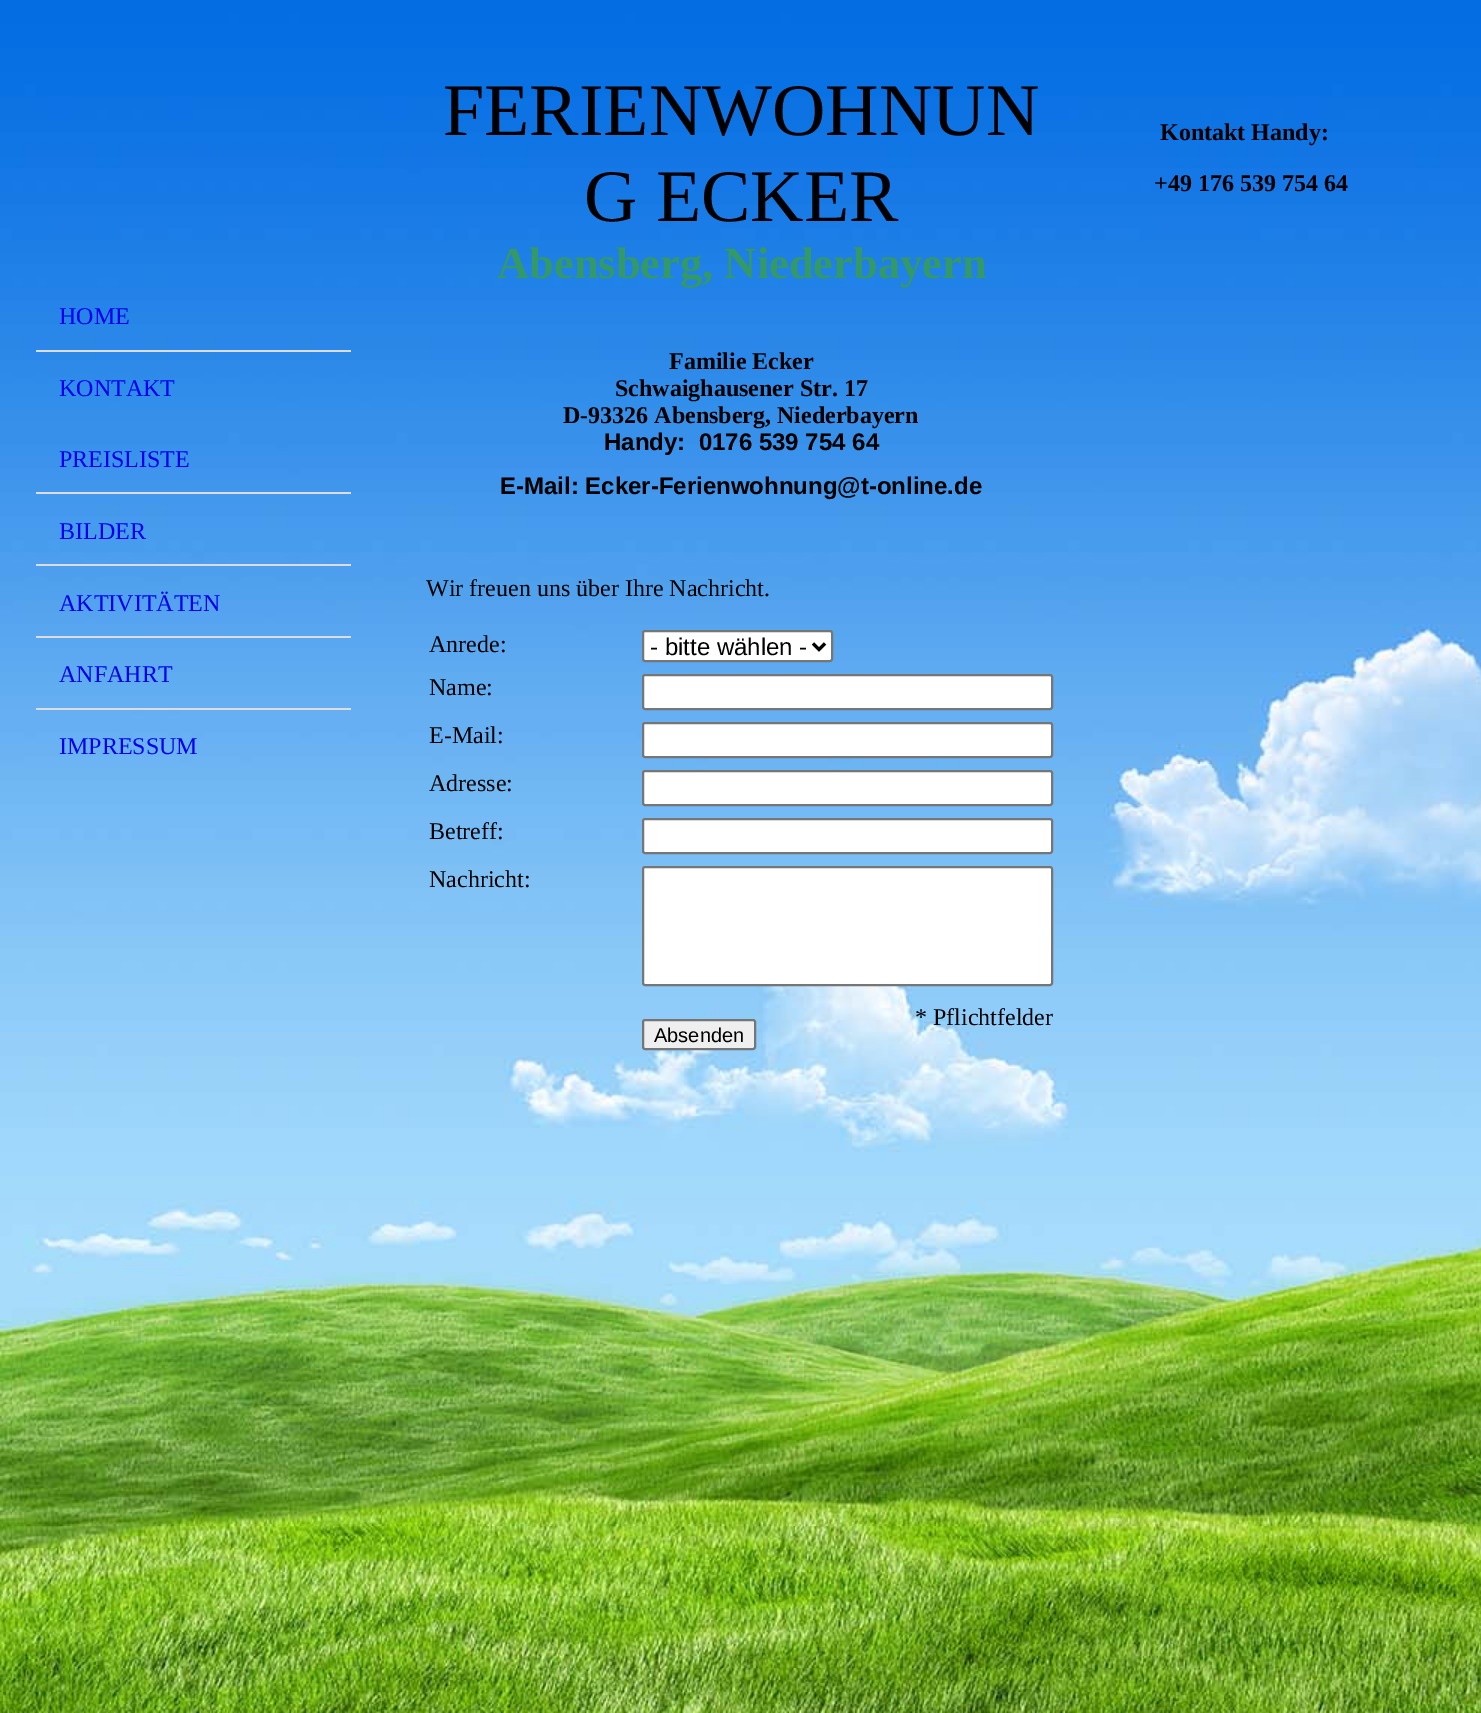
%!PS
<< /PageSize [1481 1713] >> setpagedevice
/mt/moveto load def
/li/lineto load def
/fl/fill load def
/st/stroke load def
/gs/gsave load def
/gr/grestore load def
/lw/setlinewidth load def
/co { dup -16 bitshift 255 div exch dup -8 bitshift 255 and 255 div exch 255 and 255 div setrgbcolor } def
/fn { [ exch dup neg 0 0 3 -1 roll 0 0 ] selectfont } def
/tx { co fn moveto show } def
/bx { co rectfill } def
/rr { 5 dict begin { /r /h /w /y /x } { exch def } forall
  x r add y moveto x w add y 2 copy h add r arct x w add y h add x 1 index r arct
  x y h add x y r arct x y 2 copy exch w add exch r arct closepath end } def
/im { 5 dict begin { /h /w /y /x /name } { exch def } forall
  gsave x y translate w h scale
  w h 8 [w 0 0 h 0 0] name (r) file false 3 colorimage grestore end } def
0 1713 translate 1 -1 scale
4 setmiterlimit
0 0 1481 1713 16#FFFFFF bx
(media/1.raw) 0 0 1481 1713 im
643 631 189 30 2 rr gs fl gr
16#767676 co
2 lw
st
16#000000 co
3 lw
813 643.5 mt 819 649.5 li 825 643.5 li st
16#FFFFFF co
643 675 409 34 2 rr gs fl gr
16#767676 co
2 lw
st
16#FFFFFF co
643 723 409 34 2 rr gs fl gr
16#767676 co
st
16#FFFFFF co
643 771 409 34 2 rr gs fl gr
16#767676 co
st
16#FFFFFF co
643 819 409 34 2 rr gs fl gr
16#767676 co
st
16#FFFFFF co
643 867 409 118 2 rr gs fl gr
16#767676 co
st
16#EFEFEF co
643 1020 112 29 2 rr gs fl gr
16#767676 co
st
36 350 315 2 16#DCDCDC bx
36 492 315 2 16#DCDCDC bx
36 564 315 2 16#DCDCDC bx
36 636 315 2 16#DCDCDC bx
36 708 315 2 16#DCDCDC bx
(FERIENWOHNUN) 443 135 /LiberationSerif-Regular 74 16#000000 tx
(G ECKER) 584 221 /LiberationSerif-Regular 74 16#000000 tx
(Abensberg, Niederbayern) 497 278 /LiberationSerif-Bold 44.5 16#339966 tx
(Familie Ecker) 669 369 /LiberationSerif-Bold 24 16#000000 tx
(Schwaighausener Str. 17) 615 396 /LiberationSerif-Bold 24 16#000000 tx
(D-93326 Abensberg, Niederbayern) 563 423 /LiberationSerif-Bold 24 16#000000 tx
(Handy:  0176 539 754 64) 604 450 /LiberationSans-Bold 24 16#000000 tx
(E-Mail: Ecker-Ferienwohnung@t-online.de) 500 494 /LiberationSans-Bold 24 16#000000 tx
(Wir freuen uns über Ihre Nachricht.) 426 596 /LiberationSerif-Regular 24 16#000000 tx
(Anrede:) 429 652 /LiberationSerif-Regular 24 16#000000 tx
(- bitte wählen -) 650 655 /LiberationSans-Regular 24 16#000000 tx
(Name:) 429 695 /LiberationSerif-Regular 24 16#000000 tx
(E-Mail:) 429 743 /LiberationSerif-Regular 24 16#000000 tx
(Adresse:) 429 791 /LiberationSerif-Regular 24 16#000000 tx
(Betreff:) 429 839 /LiberationSerif-Regular 24 16#000000 tx
(Nachricht:) 429 887 /LiberationSerif-Regular 24 16#000000 tx
(* Pflichtfelder) 915 1025 /LiberationSerif-Regular 24 16#000000 tx
(Absenden) 654 1042 /LiberationSans-Regular 20 16#000000 tx
(Kontakt Handy:) 1160 140 /LiberationSerif-Bold 24 16#000000 tx
(+49 176 539 754 64) 1154 191 /LiberationSerif-Bold 24 16#000000 tx
(HOME) 59 324 /LiberationSerif-Regular 24 16#0000EE tx
(KONTAKT) 59 396 /LiberationSerif-Regular 24 16#0000EE tx
(PREISLISTE) 59 467 /LiberationSerif-Regular 24 16#0000EE tx
(BILDER) 59 539 /LiberationSerif-Regular 24 16#0000EE tx
(AKTIVITÄTEN) 59 611 /LiberationSerif-Regular 24 16#0000EE tx
(ANFAHRT) 59 682 /LiberationSerif-Regular 24 16#0000EE tx
(IMPRESSUM) 59 754 /LiberationSerif-Regular 24 16#0000EE tx
showpage
